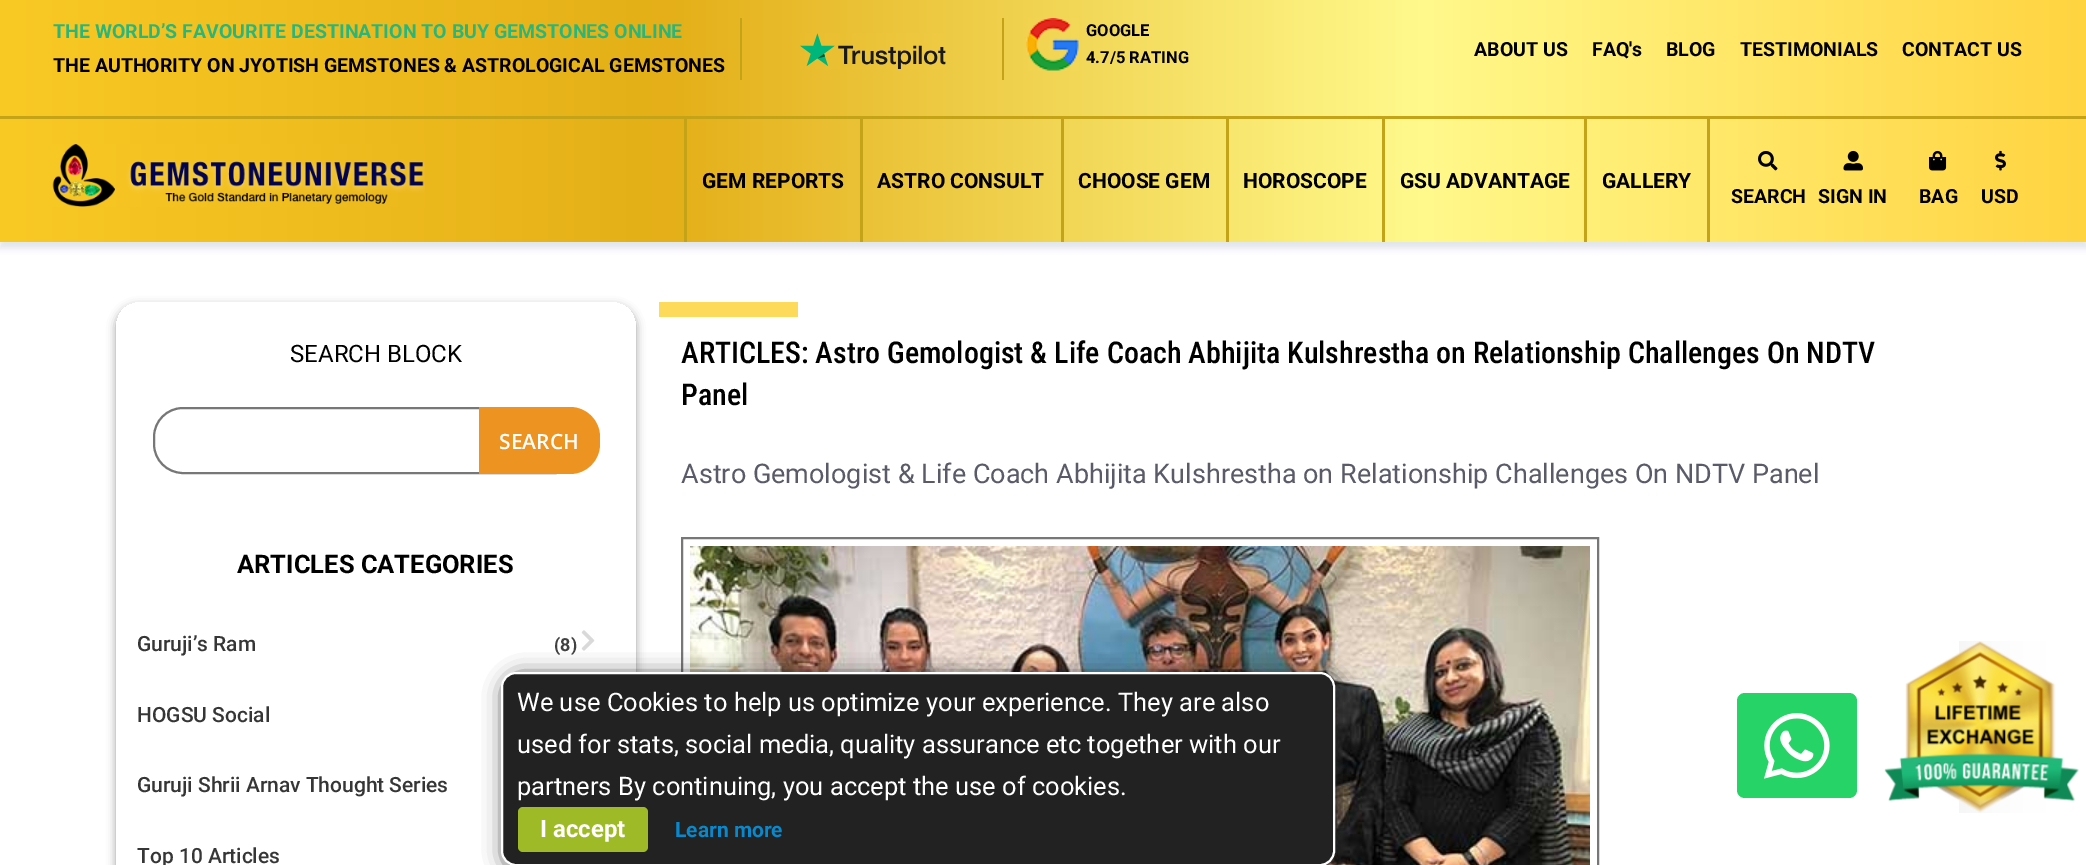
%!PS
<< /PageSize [2086 865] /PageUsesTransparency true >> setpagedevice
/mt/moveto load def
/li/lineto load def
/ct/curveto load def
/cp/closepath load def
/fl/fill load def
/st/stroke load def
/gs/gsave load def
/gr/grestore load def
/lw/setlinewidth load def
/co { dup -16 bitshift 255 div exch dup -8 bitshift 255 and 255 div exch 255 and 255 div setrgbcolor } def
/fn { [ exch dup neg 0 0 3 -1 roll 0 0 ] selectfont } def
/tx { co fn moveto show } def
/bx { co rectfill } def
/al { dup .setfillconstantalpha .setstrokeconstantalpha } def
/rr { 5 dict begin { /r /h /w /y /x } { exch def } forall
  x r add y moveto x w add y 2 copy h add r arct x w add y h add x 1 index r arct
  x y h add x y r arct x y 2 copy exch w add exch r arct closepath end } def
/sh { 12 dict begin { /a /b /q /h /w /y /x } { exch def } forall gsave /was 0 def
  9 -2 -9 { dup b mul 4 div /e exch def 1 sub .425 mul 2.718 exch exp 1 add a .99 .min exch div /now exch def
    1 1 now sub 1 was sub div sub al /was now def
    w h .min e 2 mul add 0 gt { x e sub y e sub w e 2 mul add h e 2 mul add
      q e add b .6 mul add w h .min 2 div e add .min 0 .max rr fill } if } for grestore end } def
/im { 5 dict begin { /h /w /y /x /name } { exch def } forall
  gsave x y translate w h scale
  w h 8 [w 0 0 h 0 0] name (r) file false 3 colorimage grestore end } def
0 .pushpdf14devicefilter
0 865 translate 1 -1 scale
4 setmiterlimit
0 0 2086 865 16#FFFFFF bx
16#5E7390 co
0 6 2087 242 0 3 .1 sh
0 6 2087 242 0 3 .1 sh
gs 0 0 mt 2086 0 li 2086 242 li 0 242 li cp clip newpath
<< /ShadingType 2 /ColorSpace /DeviceRGB /Coords [0 121 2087 121] /Extend [true true] /Function << /FunctionType 3 /Domain [0 1] /Functions [<< /FunctionType 2 /Domain [0 1] /C0 [.976 .788 .141] /C1 [.894 .686 .094] /N 1 >> << /FunctionType 2 /Domain [0 1] /C0 [.894 .686 .094] /C1 [1 .976 .549] /N 1 >> << /FunctionType 2 /Domain [0 1] /C0 [1 .976 .549] /C1 [1 .831 .251] /N 1 >>] /Bounds [.32 .68] /Encode [0 1 0 1 0 1] >> >> shfill gr
0 116 2086 3 16#C4A319 bx
740 18 2 62 16#C4A319 bx
1002 18 2 62 16#C4A319 bx
(media/1.raw) 800 33 146 36 im
(media/2.raw) 1026 18 53 53 im
(media/3.raw) 52 144 373 63 im
684 119 3 123 16#C4A319 bx
860 119 3 123 16#C4A319 bx
1061 119 3 123 16#C4A319 bx
1226 119 3 123 16#C4A319 bx
1382 119 3 123 16#C4A319 bx
1584 119 3 123 16#C4A319 bx
1707 119 3 123 16#C4A319 bx
(media/4.raw) 1758 151 20 20 im
(media/5.raw) 1843 150 20 21 im
(media/6.raw) 1929 150 18 21 im
(media/7.raw) 1995 150 11 21 im
(media/8.raw) 1884 641 195 172 im
gs
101 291 mt 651 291 li 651 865 li 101 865 li cp 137 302 mt 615 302 li 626.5 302 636 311.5 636 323 ct 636 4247 li 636 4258.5 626.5 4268 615 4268 ct 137 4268 li 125.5 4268 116 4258.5 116 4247 ct 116 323 li 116 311.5 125.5 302 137 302 ct cp eoclip newpath
16#000000 co
116 306 520 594 21 4.5 .39 sh
gr
16#777777 co
2 lw
154 408 430 65 29 rr st
16#ED9321 co
479 407 mt 570 407 li 586.5 407 600 420.5 600 437 ct 600 444 li 600 460.5 586.5 474 570 474 ct 479 474 li cp fl
(media/9.raw) 581 630 14 21 im
659 302 139 15 16#FEDA5B bx
16#777777 co
682 538 916 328 rectstroke
(media/10.raw) 690 546 900 319 im
16#222222 co
506 677 834 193 15 11 1 sh
502 673 832 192 14 rr gs fl gr
16#FFFFFF co
st
16#9FBA27 co
518 807 130 45 5 rr fl
16#26D367 co
1737 693 120 105 8 rr fl
(media/11.raw) 1764 713 66 66 im
(THE WORLD’S FAVOURITE DESTINATION TO BUY GEMSTONES ONLINE) 53 38 /Roboto-Bold 19.5 16#2AB67B tx
(THE AUTHORITY ON JYOTISH GEMSTONES & ASTROLOGICAL GEMSTONES) 53 72 /Roboto-Bold 19.5 16#000000 tx
(GOOGLE) 1086 36 /Roboto-Bold 16.5 16#000000 tx
(4.7/5 RATING) 1086 63 /Roboto-Bold 16.5 16#000000 tx
(ABOUT US) 1474 56 /Roboto-Bold 19.5 16#000000 tx
(FAQ's) 1592 56 /Roboto-Bold 19.5 16#000000 tx
(BLOG) 1666 56 /Roboto-Bold 19.5 16#000000 tx
(TESTIMONIALS) 1740 56 /Roboto-Bold 19.5 16#000000 tx
(CONTACT US) 1902 56 /Roboto-Bold 19.5 16#000000 tx
(GEM REPORTS) 702 188 /Roboto-Bold 21 16#000000 tx
(ASTRO CONSULT) 877 188 /Roboto-Bold 21 16#000000 tx
(CHOOSE GEM) 1078 188 /Roboto-Bold 21 16#000000 tx
(HOROSCOPE) 1243 188 /Roboto-Bold 21 16#000000 tx
(GSU ADVANTAGE) 1400 188 /Roboto-Bold 21 16#000000 tx
(GALLERY) 1602 188 /Roboto-Bold 21 16#000000 tx
(SEARCH) 1731 203 /Roboto-Bold 19.5 16#000000 tx
(SIGN IN) 1818 203 /Roboto-Bold 19.5 16#000000 tx
(BAG) 1919 203 /Roboto-Bold 19.5 16#000000 tx
(USD) 1981 203 /Roboto-Bold 19.5 16#000000 tx
(SEARCH BLOCK) 290 362 /Roboto-Regular 24 16#000000 tx
(SEARCH) 499 449 /OpenSans-SemiBold 21 16#FFFFFF tx
(ARTICLES CATEGORIES) 237 573 /Roboto-Bold 25.5 16#000000 tx
(Guruji’s Ram) 137 651 /Roboto-Medium 21 16#363636 tx
(\(8\)) 554 651 /Roboto-Bold 18 16#414141 tx
(HOGSU Social) 137 722 /Roboto-Medium 21 16#363636 tx
(Guruji Shrii Arnav Thought Series) 137 792 /Roboto-Medium 21 16#363636 tx
(Top 10 Articles) 137 863 /Roboto-Medium 21 16#363636 tx
(ARTICLES: Astro Gemologist & Life Coach Abhijita Kulshrestha on Relationship Challenges On NDTV) 681 363 /RobotoCondensed-Medium 30 16#000000 tx
(Panel) 681 405 /RobotoCondensed-Medium 30 16#000000 tx
(Astro Gemologist & Life Coach Abhijita Kulshrestha on Relationship Challenges On NDTV Panel) 681 483 /Roboto-Regular 27 16#5A5A68 tx
(We use Cookies to help us optimize your experience. They are also) 517 711 /Roboto-Regular 25.5 16#FFFFFF tx
(used for stats, social media, quality assurance etc together with our) 517 753 /Roboto-Regular 25.5 16#FFFFFF tx
(partners By continuing, you accept the use of cookies.) 517 795 /Roboto-Regular 25.5 16#FFFFFF tx
(I accept) 540 837 /Roboto-Bold 24 16#FFFFFF tx
(Learn more) 675 837 /Roboto-Bold 21 16#0A88CC tx
.poppdf14devicefilter showpage
